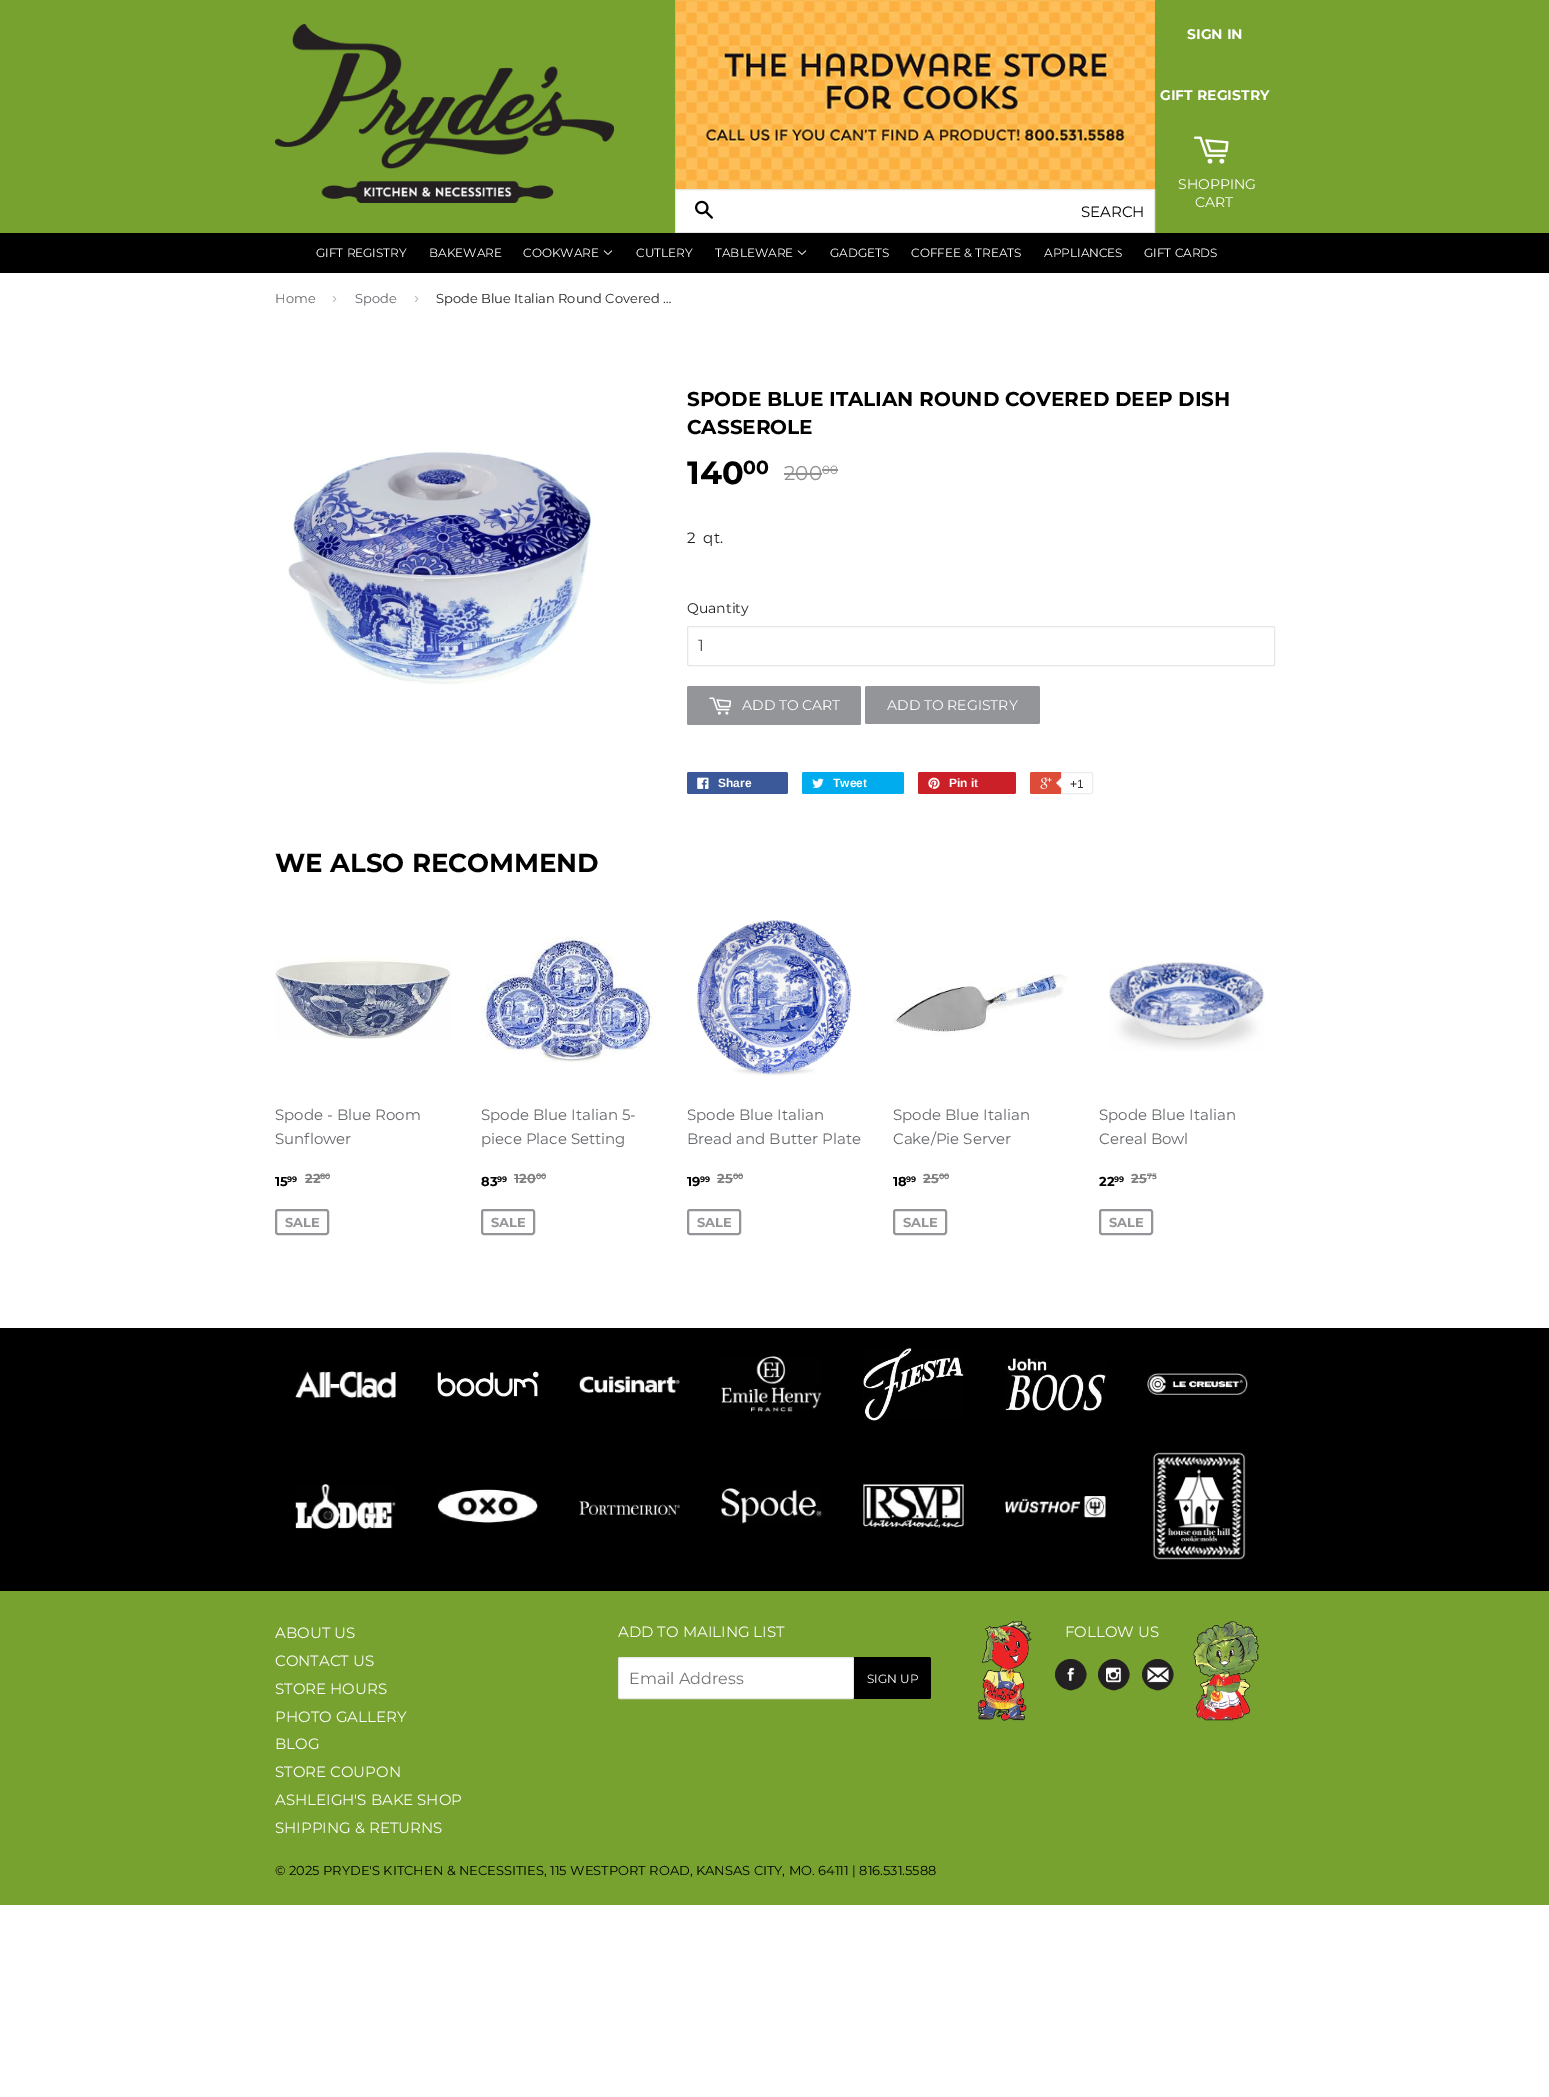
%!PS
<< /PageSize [1549 2097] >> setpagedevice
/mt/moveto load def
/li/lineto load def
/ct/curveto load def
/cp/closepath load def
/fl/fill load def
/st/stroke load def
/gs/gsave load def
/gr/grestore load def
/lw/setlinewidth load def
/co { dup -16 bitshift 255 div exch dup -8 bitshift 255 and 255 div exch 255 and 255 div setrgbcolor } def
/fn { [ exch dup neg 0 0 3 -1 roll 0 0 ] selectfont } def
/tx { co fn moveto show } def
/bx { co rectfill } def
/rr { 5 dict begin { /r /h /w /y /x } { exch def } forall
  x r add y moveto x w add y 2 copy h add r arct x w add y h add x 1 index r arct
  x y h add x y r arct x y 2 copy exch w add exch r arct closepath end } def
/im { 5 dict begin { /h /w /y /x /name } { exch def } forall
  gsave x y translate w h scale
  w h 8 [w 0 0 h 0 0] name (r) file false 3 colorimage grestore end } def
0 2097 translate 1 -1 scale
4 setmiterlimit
0 0 1549 2097 16#FFFFFF bx
0 0 1549 233 16#78A22F bx
(media/1.raw) 275 24 339 179 im
(media/2.raw) 675 0 480 189 im
(media/3.raw) 1193 136 36 28 im
16#FFFFFF co
675.5 189.5 mt 1154.5 189.5 li 1154.5 232.5 li 675.5 232.5 li cp gs fl gr
16#E6E6E6 co
st
(media/4.raw) 695 200 18 19 im
0 233 1549 40 16#000000 bx
(media/5.raw) 603 250 10 5 im
(media/5.raw) 797 250 10 5 im
(media/6.raw) 287 451 306 234 im
784 473 38 2 16#919191 bx
822 469 16 2 16#919191 bx
16#E6E6E6 co
687.5 626.5 587 39 1.5 rr st
16#939598 co
687 686 174 39 2 rr fl
(media/7.raw) 709 697 23 18 im
865 686 175 38 2 rr fl
16#3B5998 co
687 772 101 22 2 rr fl
(media/8.raw) 697 777 12 12 im
16#00ACED co
802 772 102 22 2 rr fl
(media/9.raw) 812 778 12 10 im
16#CB2027 co
918 772 98 22 2 rr fl
(media/10.raw) 928 777 12 12 im
16#DD4B39 co
1030 772 61 22 2 rr fl
(media/11.raw) 1040 777 12 12 im
16#FFFFFF co
1061.5 772.5 mt 1091 772.5 li 1092 772.5 1092.5 773 1092.5 774 ct 1092.5 792 li 1092.5 793 1092 793.5 1091 793.5 ct 1061.5 793.5 li cp gs fl gr
16#ECECEC co
st
1062 777 mt 1062 789 li 1056 783 li cp fl
16#FFFFFF co
1063 777 mt 1063 789 li 1057 783 li cp fl
(media/12.raw) 275 958 176 81 im
305 1178 15 1 16#808080 bx
320 1175 10 1 16#808080 bx
16#939598 co
2 lw
276 1210 52 24 2 rr st
(media/13.raw) 481 937 175 126 im
514 1178 22 1 16#808080 bx
536 1175 10 1 16#808080 bx
16#939598 co
482 1210 52 24 2 rr st
(media/14.raw) 697 918 155 158 im
717 1178 16 1 16#808080 bx
733 1175 10 1 16#808080 bx
16#939598 co
688 1210 52 24 2 rr st
(media/15.raw) 893 974 175 62 im
923 1178 16 1 16#808080 bx
939 1175 10 1 16#808080 bx
16#939598 co
894 1210 52 24 2 rr st
(media/16.raw) 1109 962 156 89 im
1131 1178 16 1 16#808080 bx
1147 1175 9 1 16#808080 bx
16#939598 co
1100 1210 52 24 2 rr st
0 1328 1549 263 16#000000 bx
(media/17.raw) 295 1371 101 27 im
(media/18.raw) 437 1371 102 26 im
(media/19.raw) 579 1376 101 17 im
(media/20.raw) 721 1356 101 56 im
(media/21.raw) 863 1348 101 73 im
(media/22.raw) 1005 1358 101 53 im
(media/23.raw) 1147 1373 101 22 im
(media/24.raw) 295 1484 101 45 im
(media/25.raw) 437 1489 101 34 im
(media/26.raw) 579 1501 101 14 im
(media/27.raw) 721 1488 101 36 im
(media/28.raw) 863 1484 101 44 im
(media/29.raw) 1005 1495 101 23 im
(media/30.raw) 1152 1452 94 108 im
0 1591 1549 314 16#78A22F bx
16#FFFFFF co
618.5 1657.5 235 41 1.5 rr gs fl gr
16#E6E6E6 co
1 lw
st
16#000000 co
854 1657 mt 929 1657 li 930 1657 931 1658 931 1659 ct 931 1697 li 931 1698 930 1699 929 1699 ct 854 1699 li cp fl
(media/31.raw) 977 1621 55 100 im
(media/32.raw) 1193 1621 66 100 im
(media/33.raw) 1055 1659 32 32 im
(media/34.raw) 1098 1659 32 32 im
(media/35.raw) 1142 1659 32 32 im
(SIGN IN) 1187 39 /Montserrat-Bold 14 16#FFFFFF tx
(GIFT REGISTRY) 1160 100 /Montserrat-Bold 14 16#FFFFFF tx
(SHOPPING) 1178 189 /Montserrat-Regular 14 16#FFFFFF tx
(CART) 1195 207 /Montserrat-Regular 14 16#FFFFFF tx
(SEARCH) 1081 217 /Montserrat-Regular 15 16#000000 tx
(GIFT REGISTRY) 316 257 /Montserrat-Regular 12 16#FFFFFF tx
(BAKEWARE) 429 257 /Montserrat-Regular 12 16#FFFFFF tx
(COOKWARE) 523 257 /Montserrat-Regular 12 16#FFFFFF tx
(CUTLERY) 636 257 /Montserrat-Regular 12 16#FFFFFF tx
(TABLEWARE) 715 257 /Montserrat-Regular 12 16#FFFFFF tx
(GADGETS) 830 257 /Montserrat-Regular 12 16#FFFFFF tx
(COFFEE & TREATS) 911 257 /Montserrat-Regular 12 16#FFFFFF tx
(APPLIANCES) 1044 257 /Montserrat-Regular 12 16#FFFFFF tx
(GIFT CARDS) 1144 257 /Montserrat-Regular 12 16#FFFFFF tx
(Home) 275 303 /Montserrat-Regular 13 16#636568 tx
(›) 332 303 /LiberationSans-Regular 15 16#BBBBBB tx
(Spode) 355 303 /Montserrat-Regular 13 16#636568 tx
(›) 414 303 /LiberationSans-Regular 15 16#BBBBBB tx
(Spode Blue Italian Round Covered …) 436 303 /Montserrat-Regular 13 16#222222 tx
(SPODE BLUE ITALIAN ROUND COVERED DEEP DISH) 687 406 /Montserrat-Bold 20 16#000000 tx
(CASSEROLE) 687 434 /Montserrat-Bold 20 16#000000 tx
(140) 687 484 /Montserrat-Bold 32 16#000000 tx
(00) 743 474 /Montserrat-Bold 19 16#000000 tx
(200) 784 480 /Montserrat-Regular 20 16#919191 tx
(00) 822 474 /Montserrat-Regular 12 16#919191 tx
(2  qt.) 687 543 /Montserrat-Regular 15 16#222222 tx
(Quantity) 687 613 /Montserrat-Regular 14 16#222222 tx
(1) 698 651 /Montserrat-Regular 16 16#555555 tx
(ADD TO CART) 742 710 /Montserrat-Regular 14 16#FFFFFF tx
(ADD TO REGISTRY) 887 710 /Montserrat-Regular 14 16#FFFFFF tx
(Share) 718 787 /LiberationSans-Bold 12 16#FFFFFF tx
(Tweet) 833 787 /LiberationSans-Bold 12 16#FFFFFF tx
(Pin it) 949 787 /LiberationSans-Bold 12 16#FFFFFF tx
(+1) 1070 788 /LiberationSans-Regular 12 16#333333 tx
(WE ALSO RECOMMEND) 275 872 /Montserrat-Bold 26 16#000000 tx
(Spode - Blue Room) 275 1120 /Montserrat-Regular 15 16#636568 tx
(Sunflower) 275 1144 /Montserrat-Regular 15 16#636568 tx
(15) 275 1186 /Montserrat-Bold 13 16#000000 tx
(99) 287 1182 /Montserrat-Bold 8 16#000000 tx
(22) 305 1183 /Montserrat-Bold 13 16#808080 tx
(80) 320 1179 /Montserrat-Bold 8 16#808080 tx
(SALE) 285 1227 /Montserrat-Bold 13 16#939598 tx
(Spode Blue Italian 5-) 481 1120 /Montserrat-Regular 15 16#636568 tx
(piece Place Setting) 481 1144 /Montserrat-Regular 15 16#636568 tx
(83) 481 1186 /Montserrat-Bold 13 16#000000 tx
(99) 497 1182 /Montserrat-Bold 8 16#000000 tx
(120) 514 1183 /Montserrat-Bold 13 16#808080 tx
(00) 536 1179 /Montserrat-Bold 8 16#808080 tx
(SALE) 491 1227 /Montserrat-Bold 13 16#939598 tx
(Spode Blue Italian) 687 1120 /Montserrat-Regular 15 16#636568 tx
(Bread and Butter Plate) 687 1144 /Montserrat-Regular 15 16#636568 tx
(19) 687 1186 /Montserrat-Bold 13 16#000000 tx
(99) 700 1182 /Montserrat-Bold 8 16#000000 tx
(25) 717 1183 /Montserrat-Bold 13 16#808080 tx
(00) 733 1179 /Montserrat-Bold 8 16#808080 tx
(SALE) 697 1227 /Montserrat-Bold 13 16#939598 tx
(Spode Blue Italian) 893 1120 /Montserrat-Regular 15 16#636568 tx
(Cake/Pie Server) 893 1144 /Montserrat-Regular 15 16#636568 tx
(18) 893 1186 /Montserrat-Bold 13 16#000000 tx
(99) 906 1182 /Montserrat-Bold 8 16#000000 tx
(25) 923 1183 /Montserrat-Bold 13 16#808080 tx
(00) 939 1179 /Montserrat-Bold 8 16#808080 tx
(SALE) 903 1227 /Montserrat-Bold 13 16#939598 tx
(Spode Blue Italian) 1099 1120 /Montserrat-Regular 15 16#636568 tx
(Cereal Bowl) 1099 1144 /Montserrat-Regular 15 16#636568 tx
(22) 1099 1186 /Montserrat-Bold 13 16#000000 tx
(99) 1114 1182 /Montserrat-Bold 8 16#000000 tx
(25) 1131 1183 /Montserrat-Bold 13 16#808080 tx
(75) 1147 1179 /Montserrat-Bold 8 16#808080 tx
(SALE) 1109 1227 /Montserrat-Bold 13 16#939598 tx
(ABOUT US) 275 1638 /Montserrat-Regular 15 16#FFFFFF tx
(CONTACT US) 275 1666 /Montserrat-Regular 15 16#FFFFFF tx
(STORE HOURS) 275 1694 /Montserrat-Regular 15 16#FFFFFF tx
(PHOTO GALLERY) 275 1722 /Montserrat-Regular 15 16#FFFFFF tx
(BLOG) 275 1749 /Montserrat-Regular 15 16#FFFFFF tx
(STORE COUPON) 275 1777 /Montserrat-Regular 15 16#FFFFFF tx
(ASHLEIGH'S BAKE SHOP) 275 1805 /Montserrat-Regular 15 16#FFFFFF tx
(SHIPPING & RETURNS) 275 1833 /Montserrat-Regular 15 16#FFFFFF tx
(ADD TO MAILING LIST) 618 1637 /Montserrat-Regular 15 16#FFFFFF tx
(Email Address) 629 1684 /Montserrat-Regular 16 16#757575 tx
(SIGN UP) 867 1683 /Montserrat-Regular 12 16#FFFFFF tx
(FOLLOW US) 1065 1637 /Montserrat-Regular 15 16#FFFFFF tx
(© 2025 PRYDE'S KITCHEN & NECESSITIES, 115 WESTPORT ROAD, KANSAS CITY, MO. 64111 | 816.531.5588) 275 1875 /Montserrat-Regular 13 16#000000 tx
showpage
